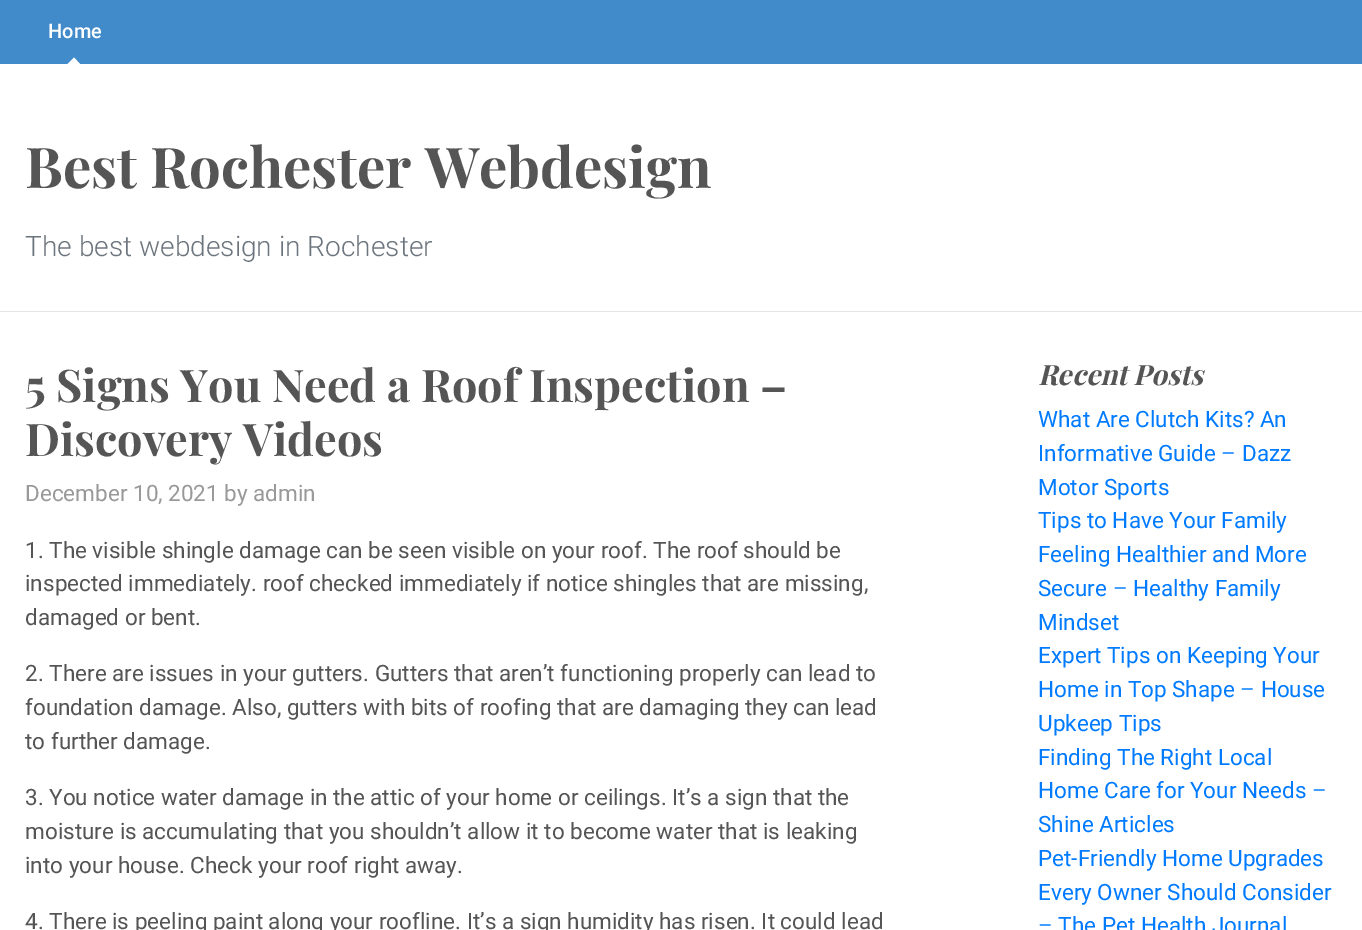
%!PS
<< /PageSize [1362 930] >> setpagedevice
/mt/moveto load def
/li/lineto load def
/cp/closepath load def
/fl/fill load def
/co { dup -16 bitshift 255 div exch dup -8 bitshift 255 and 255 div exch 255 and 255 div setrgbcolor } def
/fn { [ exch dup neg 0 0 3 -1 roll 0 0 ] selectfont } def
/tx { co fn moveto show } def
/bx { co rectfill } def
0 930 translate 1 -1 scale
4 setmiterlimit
0 0 1362 930 16#FFFFFF bx
0 0 1362 64 16#428BCA bx
16#FFFFFF co
80 64 mt 67.5 64 li 74 57.5 li cp fl
0 311 1362 1 16#E5E5E5 bx
(Home) 48 38 /Roboto-Medium 20 16#FFFFFF tx
(Best Rochester Webdesign) 25 188 /PlayfairDisplay-Bold 56.25 16#555555 tx
(The best webdesign in Rochester) 25 256 /Roboto-Light 28.1 16#6C757D tx
(5 Signs You Need a Roof Inspection –) 25 402 /PlayfairDisplay-Bold 45 16#555555 tx
(Discovery Videos) 25 456 /PlayfairDisplay-Bold 45 16#555555 tx
(December 10, 2021 by admin) 25 501 /Roboto-Regular 22.5 16#999999 tx
(1. The visible shingle damage can be seen visible on your roof. The roof should be) 25 558 /Roboto-Regular 22.5 16#555555 tx
(inspected immediately. roof checked immediately if notice shingles that are missing,) 25 591 /Roboto-Regular 22.5 16#555555 tx
(damaged or bent.) 25 625 /Roboto-Regular 22.5 16#555555 tx
(2. There are issues in your gutters. Gutters that aren’t functioning properly can lead to) 25 681 /Roboto-Regular 22.5 16#555555 tx
(foundation damage. Also, gutters with bits of roofing that are damaging they can lead) 25 715 /Roboto-Regular 22.5 16#555555 tx
(to further damage.) 25 749 /Roboto-Regular 22.5 16#555555 tx
(3. You notice water damage in the attic of your home or ceilings. It’s a sign that the) 25 805 /Roboto-Regular 22.5 16#555555 tx
(moisture is accumulating that you shouldn’t allow it to become water that is leaking) 25 839 /Roboto-Regular 22.5 16#555555 tx
(into your house. Check your roof right away.) 25 873 /Roboto-Regular 22.5 16#555555 tx
(4. There is peeling paint along your roofline. It’s a sign humidity has risen. It could lead) 25 929 /Roboto-Regular 22.5 16#555555 tx
(Recent Posts) 1038 385 /PlayfairDisplay-BoldItalic 28.1 16#555555 tx
(What Are Clutch Kits? An) 1038 427 /Roboto-Regular 22.5 16#007BFF tx
(Informative Guide – Dazz) 1038 461 /Roboto-Regular 22.5 16#007BFF tx
(Motor Sports) 1038 495 /Roboto-Regular 22.5 16#007BFF tx
(Tips to Have Your Family) 1038 528 /Roboto-Regular 22.5 16#007BFF tx
(Feeling Healthier and More) 1038 562 /Roboto-Regular 22.5 16#007BFF tx
(Secure – Healthy Family) 1038 596 /Roboto-Regular 22.5 16#007BFF tx
(Mindset) 1038 630 /Roboto-Regular 22.5 16#007BFF tx
(Expert Tips on Keeping Your) 1038 663 /Roboto-Regular 22.5 16#007BFF tx
(Home in Top Shape – House) 1038 697 /Roboto-Regular 22.5 16#007BFF tx
(Upkeep Tips) 1038 731 /Roboto-Regular 22.5 16#007BFF tx
(Finding The Right Local) 1038 765 /Roboto-Regular 22.5 16#007BFF tx
(Home Care for Your Needs –) 1038 798 /Roboto-Regular 22.5 16#007BFF tx
(Shine Articles) 1038 832 /Roboto-Regular 22.5 16#007BFF tx
(Pet-Friendly Home Upgrades) 1038 866 /Roboto-Regular 22.5 16#007BFF tx
(Every Owner Should Consider) 1038 900 /Roboto-Regular 22.5 16#007BFF tx
(– The Pet Health Journal) 1038 933 /Roboto-Regular 22.5 16#007BFF tx
showpage
